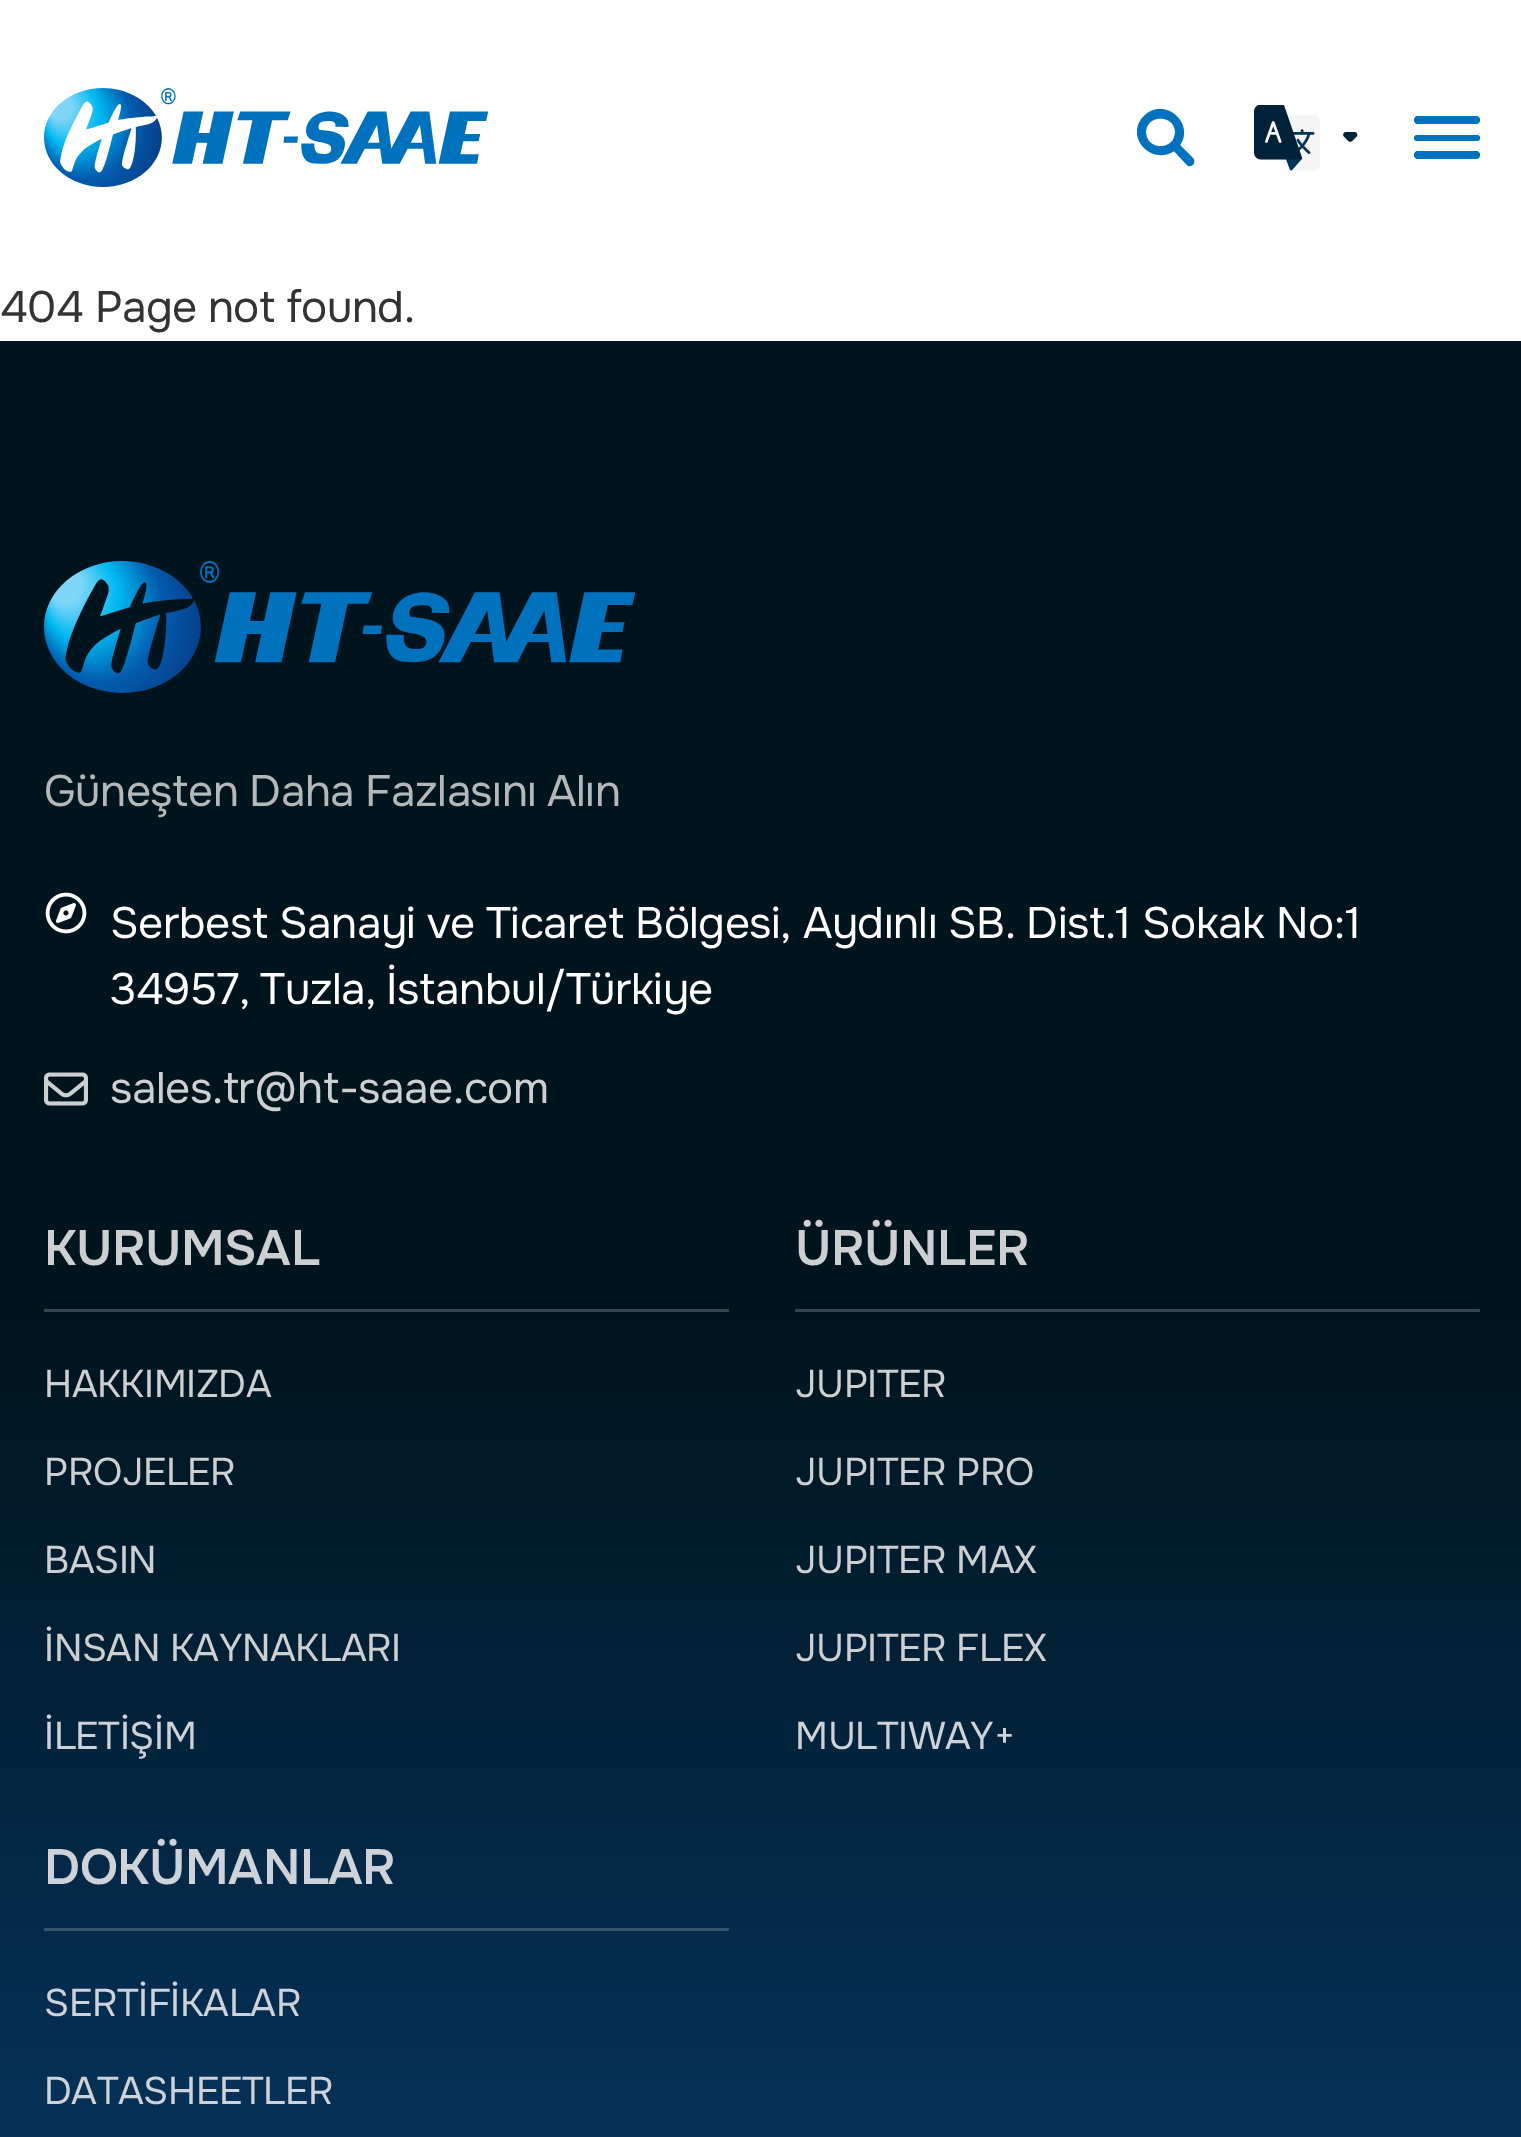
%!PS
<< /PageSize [1521 2137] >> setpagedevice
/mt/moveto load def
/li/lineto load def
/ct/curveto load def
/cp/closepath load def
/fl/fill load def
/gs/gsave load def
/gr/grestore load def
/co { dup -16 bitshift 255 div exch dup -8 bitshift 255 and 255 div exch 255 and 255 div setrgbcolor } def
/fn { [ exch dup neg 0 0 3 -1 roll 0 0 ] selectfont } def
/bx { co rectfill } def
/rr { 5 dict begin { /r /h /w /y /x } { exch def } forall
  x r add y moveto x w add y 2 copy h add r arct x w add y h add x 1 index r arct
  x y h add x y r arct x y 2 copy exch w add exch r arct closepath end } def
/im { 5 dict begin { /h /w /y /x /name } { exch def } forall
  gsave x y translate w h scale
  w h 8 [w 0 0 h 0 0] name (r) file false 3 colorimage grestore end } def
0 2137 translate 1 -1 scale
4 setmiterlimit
0 0 1521 2137 16#FFFFFF bx
(media/1.raw) 44 88 445 99 im
16#0072BD co
1193 158 mt 1196 162 1193 167 1188 166 ct 1174 151 li 1151 166 1124 136 1144 116 ct 1164 96 1195 123 1180 145 ct cp 1146 132 mt 1146 151 1175 151 1175 132 ct 1175 114 1146 114 1146 132 ct cp fl
(media/2.raw) 1254 105 66 66 im
(media/3.raw) 1343 132 15 10 im
1414 116 66 8 4 rr fl
1414 135 66 6 3 rr fl
1414 151 66 8 4 rr fl
gs 0 341 mt 1521 341 li 1521 2137 li 0 2137 li cp clip newpath
<< /ShadingType 2 /ColorSpace /DeviceRGB /Coords [762 341 762 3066] /Extend [true true] /Function << /FunctionType 3 /Domain [0 1] /Functions [<< /FunctionType 2 /Domain [0 1] /C0 [0 .078 .114] /C1 [0 .078 .114] /N 1 >> << /FunctionType 2 /Domain [0 1] /C0 [0 .078 .114] /C1 [.059 .329 .612] /N 1 >>] /Bounds [.35] /Encode [0 1 0 1] >> >> shfill gr
(media/4.raw) 44 561 591 132 im
(media/5.raw) 45 892 42 42 im
(media/6.raw) 44 1072 44 34 im
44 1309 685 3 16#33444B bx
795 1309 685 3 16#33444B bx
44 1928 685 3 16#37556F bx
/Onest-Regular 44 fn
16#333333 co
0 322 mt -.5 0 32 -.45 0 (404 Page not found.) awidthshow
16#B3B9BB co
44 806 mt -.5 0 32 -.45 0 (Güneşten Daha Fazlasını Alın) awidthshow
16#FFFFFF co
110 938 mt -.25 0 32 -.45 0 (Serbest Sanayi ve Ticaret Bölgesi, Aydınlı SB. Dist.1 Sokak No:1) awidthshow
110 1004 mt -1 0 32 -.45 0 (34957, Tuzla, İstanbul/Türkiye) awidthshow
16#CCD0D2 co
110 1103 mt -.45 0 (sales.tr@ht-saae.com) ashow
/Onest-SemiBold 49.5 fn
44 1265 mt -.45 0 (KURUMSAL) ashow
/Onest-Regular 38.5 fn
44 1397 mt -.45 0 (HAKKIMIZDA) ashow
44 1485 mt -.45 0 (PROJELER) ashow
44 1573 mt -.45 0 (BASIN) ashow
44 1661 mt -.45 0 (İNSAN KAYNAKLARI) ashow
16#CDD3D8 co
44 1749 mt -.45 0 (İLETİŞİM) ashow
/Onest-SemiBold 49.5 fn
16#CCD0D2 co
795 1265 mt -.45 0 (ÜRÜNLER) ashow
/Onest-Regular 38.5 fn
795 1397 mt -.45 0 (JUPITER) ashow
795 1485 mt -.45 0 (JUPITER PRO) ashow
795 1573 mt -.45 0 (JUPITER MAX) ashow
795 1661 mt -.45 0 (JUPITER FLEX) ashow
16#CDD3D8 co
795 1749 mt -.45 0 (MULTIWAY+) ashow
/Onest-SemiBold 49.5 fn
44 1884 mt -.45 0 (DOKÜMANLAR) ashow
/Onest-Regular 38.5 fn
44 2016 mt -.45 0 (SERTİFİKALAR) ashow
44 2104 mt -.45 0 (DATASHEETLER) ashow
showpage
